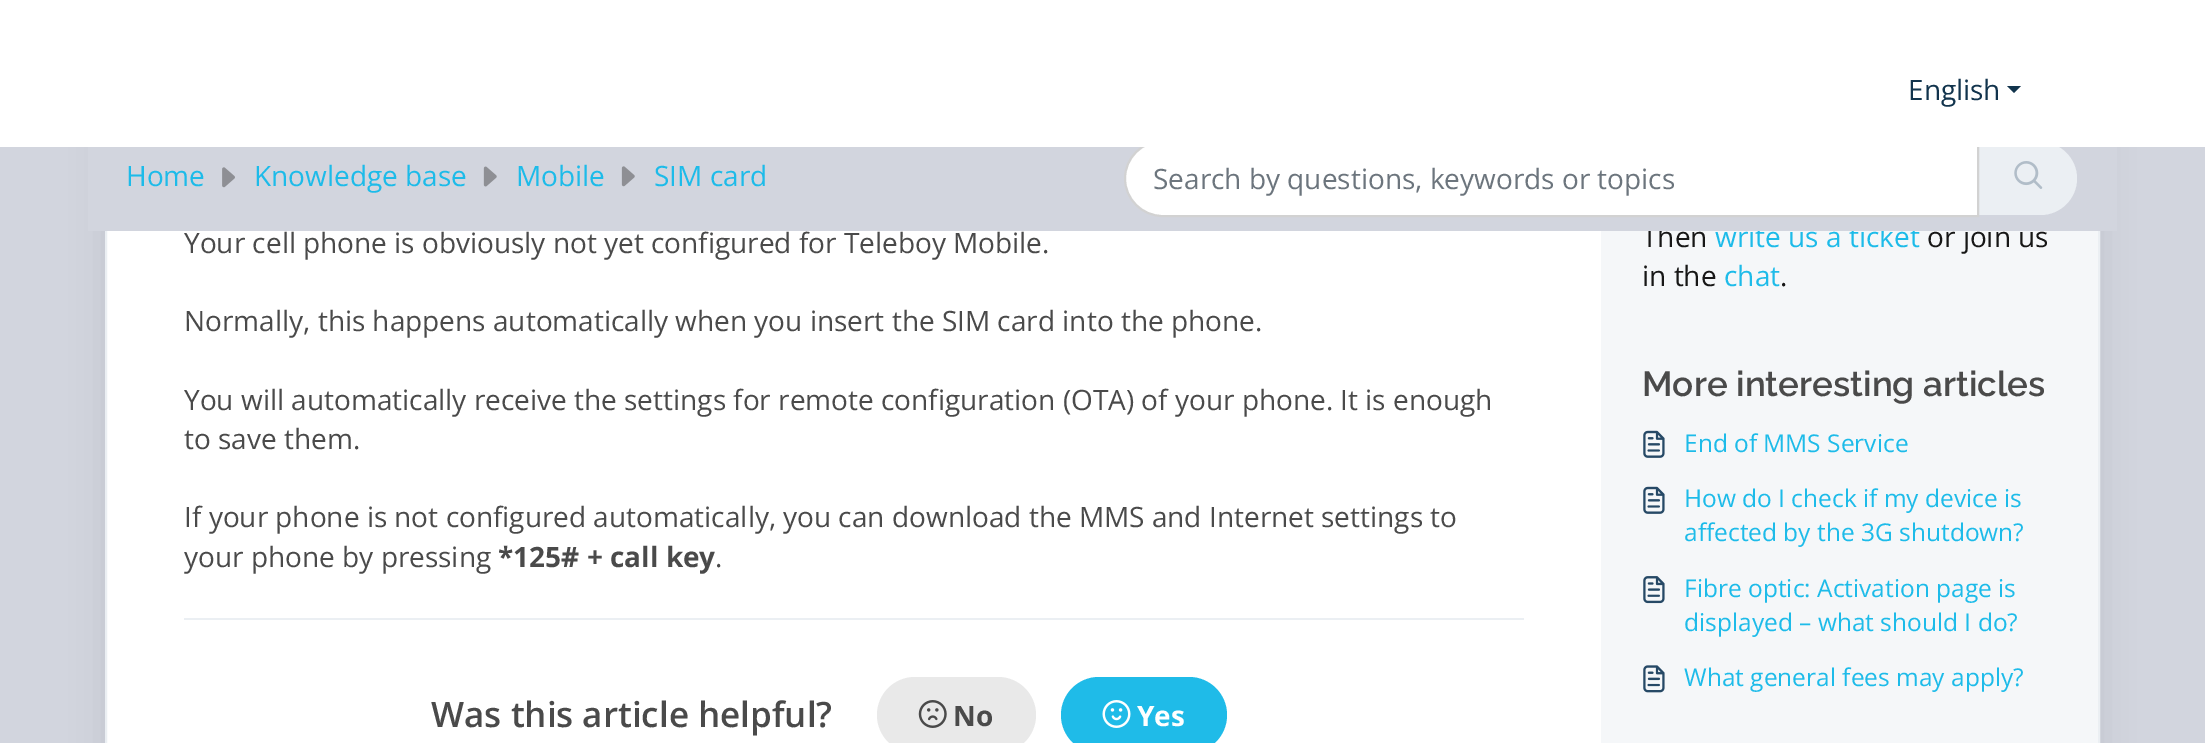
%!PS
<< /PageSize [2205 743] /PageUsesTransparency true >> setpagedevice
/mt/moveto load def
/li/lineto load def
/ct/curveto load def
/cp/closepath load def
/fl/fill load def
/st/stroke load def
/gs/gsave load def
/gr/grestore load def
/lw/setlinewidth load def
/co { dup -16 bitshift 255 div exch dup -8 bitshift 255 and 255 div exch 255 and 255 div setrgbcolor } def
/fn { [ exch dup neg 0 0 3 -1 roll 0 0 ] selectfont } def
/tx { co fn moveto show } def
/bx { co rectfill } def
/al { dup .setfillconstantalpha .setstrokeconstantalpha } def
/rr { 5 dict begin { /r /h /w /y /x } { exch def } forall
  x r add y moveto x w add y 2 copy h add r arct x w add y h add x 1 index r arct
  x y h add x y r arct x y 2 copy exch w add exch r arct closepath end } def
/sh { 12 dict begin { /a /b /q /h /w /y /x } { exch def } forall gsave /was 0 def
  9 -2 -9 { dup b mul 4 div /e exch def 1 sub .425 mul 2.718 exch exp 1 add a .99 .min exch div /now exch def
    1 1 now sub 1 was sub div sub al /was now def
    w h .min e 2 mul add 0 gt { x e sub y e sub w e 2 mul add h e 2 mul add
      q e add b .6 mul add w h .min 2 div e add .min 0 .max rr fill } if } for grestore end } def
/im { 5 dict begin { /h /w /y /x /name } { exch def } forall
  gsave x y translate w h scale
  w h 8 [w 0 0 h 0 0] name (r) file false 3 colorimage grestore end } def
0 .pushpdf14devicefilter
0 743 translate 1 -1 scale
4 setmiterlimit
0 0 2205 743 16#D2D5DE bx
16#27313A co
105 79 1995 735 21 16.5 .1 sh
107 231 1494 512 16#FFFFFF bx
16#EBEFF3 co
2 lw
106 69 1993 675 rectstroke
184 618 1340 2 16#EBEFF3 bx
16#E9E9E9 co
877 677 159 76 38 rr fl
(media/5.raw) 918 700 29 28 im
16#1FBBE8 co
1061 677 166 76 38 rr fl
(media/6.raw) 1102 700 29 28 im
1601 231 497 512 16#F5F7F9 bx
(media/7.raw) 1643 430 22 28 im
(media/7.raw) 1643 486 22 28 im
(media/8.raw) 1643 576 22 28 im
(media/9.raw) 1643 665 22 28 im
(Your cell phone is obviously not yet configured for Teleboy Mobile.) 184 253 /OpenSans-Regular 28 16#4A4A4A tx
(Normally, this happens automatically when you insert the SIM card into the phone.) 184 331 /OpenSans-Regular 28 16#4A4A4A tx
(You will automatically receive the settings for remote configuration \(OTA\) of your phone. It is enough) 184 410 /OpenSans-Regular 28 16#4A4A4A tx
(to save them.) 184 449 /OpenSans-Regular 28 16#4A4A4A tx
(If your phone is not configured automatically, you can download the MMS and Internet settings to) 184 527 /OpenSans-Regular 28 16#4A4A4A tx
(your phone by pressing) 184 567 /OpenSans-Regular 28 16#4A4A4A tx
(*125# + call key) 498 567 /OpenSans-Bold 28 16#4A4A4A tx
(.) 715 567 /OpenSans-Regular 28 16#4A4A4A tx
(Was this article helpful?) 431 727 /OpenSans-SemiBold 35 16#4A4A4A tx
(No) 953 726 /OpenSans-Bold 28 16#4A4A4A tx
(Yes) 1137 726 /OpenSans-Bold 28 16#FFFFFF tx
(Then) 1642 247 /OpenSans-Regular 28 16#171717 tx
(write us a ticket) 1715 247 /OpenSans-Regular 28 16#1DBBE9 tx
(or join us) 1927 247 /OpenSans-Regular 28 16#171717 tx
88 147 2029 84 16#D2D5DE bx
16#EBEFF3 co
1979 142 mt 2040.5 142 li 2060.5 142 2077 158.5 2077 178.5 ct 2077 198.5 2060.5 215 2040.5 215 ct 1979 215 li cp fl
16#FFFFFF co
1162.5 141 mt 1978 141 li 1978 216 li 1162.5 216 li 1142 216 1125 199 1125 178.5 ct 1125 158 1142 141 1162.5 141 ct cp gs fl gr
16#D2D2D2 co
st
0 0 2205 147 16#FFFFFF bx
16#12344D co
2007 86 mt 2021 86 li 2014 93 li cp fl
(English) 1908 100 /OpenSans-Regular 28 16#12344D tx
(media/4.raw) 2014 161 29 28 im
(Search by questions, keywords or topics) 1153 189 /OpenSans-Regular 28 16#6C757D tx
(media/3.raw) 621 166 14 21 im
(media/2.raw) 483 166 14 21 im
(media/1.raw) 222 167 13 21 im
(SIM card) 654 186 /OpenSans-Regular 28 16#1DBBE9 tx
(Mobile) 516 186 /OpenSans-Regular 28 16#1DBBE9 tx
(Knowledge base) 254 186 /OpenSans-Regular 28 16#1DBBE9 tx
(Home) 126 186 /OpenSans-Regular 28 16#1DBBE9 tx
(in the) 1642 286 /OpenSans-Regular 28 16#171717 tx
(chat) 1724 286 /OpenSans-Regular 28 16#1DBBE9 tx
(.) 1780 286 /OpenSans-Regular 28 16#171717 tx
(More interesting articles) 1642 396 /Raleway-SemiBold 35 16#4A4A4A tx
(End of MMS Service) 1684 452 /OpenSans-Regular 24.5 16#1DBBE9 tx
(How do I check if my device is) 1684 507 /OpenSans-Regular 24.5 16#1DBBE9 tx
(affected by the 3G shutdown?) 1684 541 /OpenSans-Regular 24.5 16#1DBBE9 tx
(Fibre optic: Activation page is) 1684 597 /OpenSans-Regular 24.5 16#1DBBE9 tx
(displayed – what should I do?) 1684 631 /OpenSans-Regular 24.5 16#1DBBE9 tx
(What general fees may apply?) 1684 686 /OpenSans-Regular 24.5 16#1DBBE9 tx
.poppdf14devicefilter showpage
